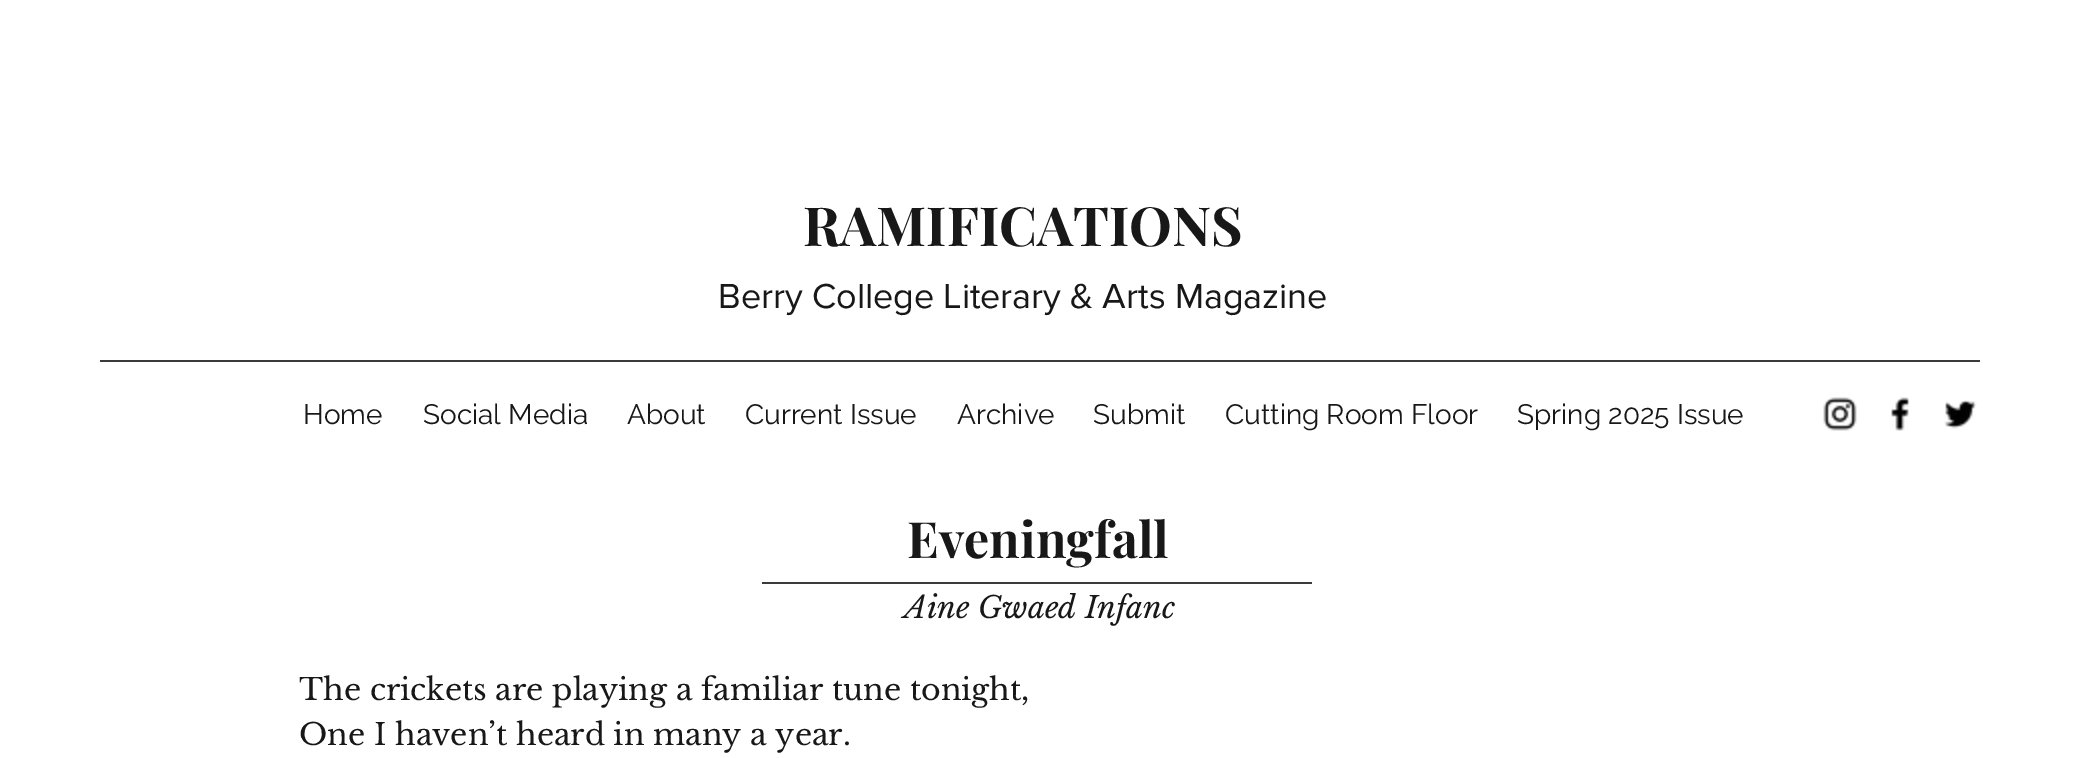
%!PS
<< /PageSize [2078 758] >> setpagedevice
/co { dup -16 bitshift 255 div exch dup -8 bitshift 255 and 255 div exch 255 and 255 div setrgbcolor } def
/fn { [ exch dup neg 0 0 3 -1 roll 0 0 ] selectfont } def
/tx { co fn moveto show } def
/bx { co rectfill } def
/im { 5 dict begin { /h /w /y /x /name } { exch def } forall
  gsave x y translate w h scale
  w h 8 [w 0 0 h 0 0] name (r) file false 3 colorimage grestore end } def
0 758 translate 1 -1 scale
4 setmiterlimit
0 0 2078 758 16#FFFFFF bx
100 360 1880 2 16#3B3B3B bx
(media/1.raw) 1823 397 34 34 im
(media/2.raw) 1891 397 19 34 im
(media/3.raw) 1944 400 33 29 im
762 582 550 2 16#3B3B3B bx
(RAMIFICATIONS) 803 246 /PlayfairDisplay-Bold 54 16#181818 tx
(Berry College Literary & Arts Magazine) 718 308 /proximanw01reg-Regular 36 16#181818 tx
(Home) 303 424 /Raleway-Regular 28 16#181818 tx
(Social Media) 423 424 /Raleway-Regular 28 16#181818 tx
(About) 627 424 /Raleway-Regular 28 16#181818 tx
(Current Issue) 745 424 /Raleway-Regular 28 16#181818 tx
(Archive) 957 424 /Raleway-Regular 28 16#181818 tx
(Submit) 1093 424 /Raleway-Regular 28 16#181818 tx
(Cutting Room Floor) 1225 424 /Raleway-Regular 28 16#181818 tx
(Spring 2025 Issue) 1517 424 /Raleway-Regular 28 16#181818 tx
(Eveningfall) 907 558 /PlayfairDisplay-Bold 50 16#181818 tx
(Aine Gwaed Infanc) 904 618 /LibreBaskerville-Italic 30 16#181818 tx
(The crickets are playing a familiar tune tonight,) 299 700 /LibreBaskerville-Regular 30 16#181818 tx
(One I haven’t heard in many a year.) 299 745 /LibreBaskerville-Regular 30 16#181818 tx
showpage
